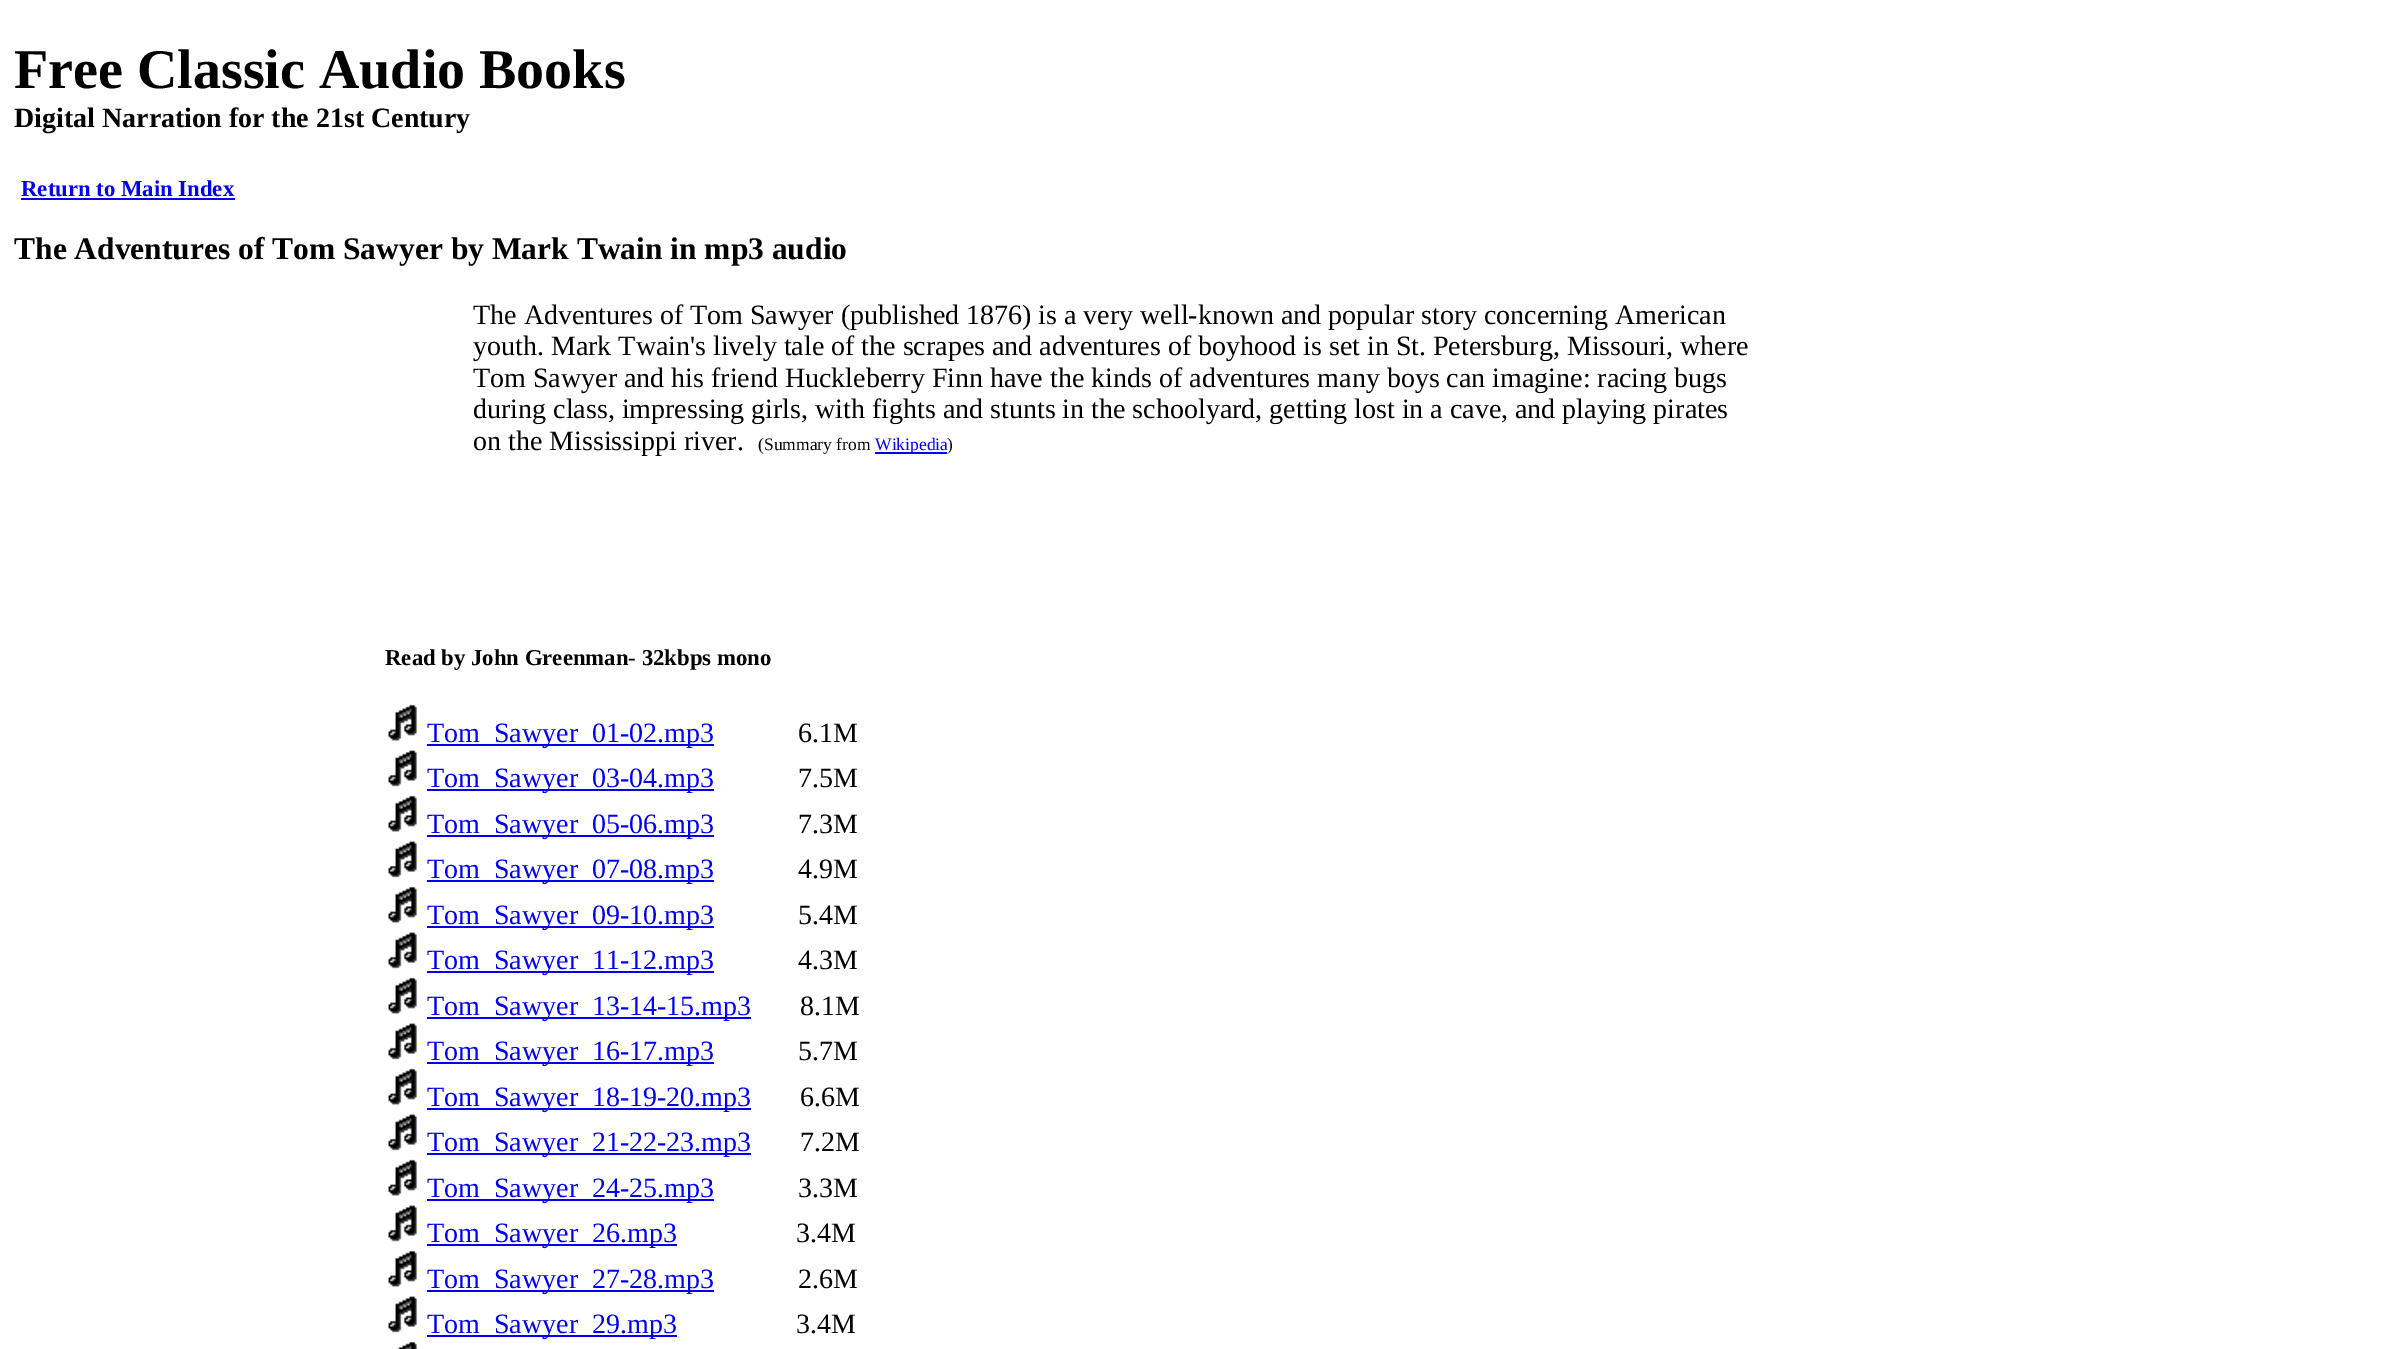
%!PS
<< /PageSize [2389 1349] >> setpagedevice
/co { dup -16 bitshift 255 div exch dup -8 bitshift 255 and 255 div exch 255 and 255 div setrgbcolor } def
/fn { [ exch dup neg 0 0 3 -1 roll 0 0 ] selectfont } def
/tx { co fn moveto show } def
/bx { co rectfill } def
/im { 5 dict begin { /h /w /y /x /name } { exch def } forall
  gsave x y translate w h scale
  w h 8 [w 0 0 h 0 0] name (r) file false 3 colorimage grestore end } def
0 1349 translate 1 -1 scale
4 setmiterlimit
0 0 2389 1349 16#FFFFFF bx
21 198 214 2 16#0000EE bx
875 452 72 2 16#0000EE bx
(media/1.raw) 388 704 29 37 im
427 744 287 2 16#0000EE bx
(media/2.raw) 388 750 29 37 im
427 789 287 2 16#0000EE bx
(media/1.raw) 388 795 29 37 im
427 835 287 2 16#0000EE bx
(media/2.raw) 388 841 29 37 im
427 880 287 2 16#0000EE bx
(media/1.raw) 388 886 29 37 im
427 926 287 2 16#0000EE bx
(media/2.raw) 388 932 29 37 im
427 971 287 2 16#0000EE bx
(media/1.raw) 388 977 29 37 im
427 1017 324 2 16#0000EE bx
(media/2.raw) 388 1023 29 37 im
427 1062 287 2 16#0000EE bx
(media/1.raw) 388 1068 29 37 im
427 1108 324 2 16#0000EE bx
(media/2.raw) 388 1114 29 37 im
427 1153 324 2 16#0000EE bx
(media/1.raw) 388 1159 29 37 im
427 1199 287 2 16#0000EE bx
(media/2.raw) 388 1205 29 37 im
427 1244 250 2 16#0000EE bx
(media/1.raw) 388 1250 29 37 im
427 1290 287 2 16#0000EE bx
(media/2.raw) 388 1296 29 37 im
427 1335 250 2 16#0000EE bx
(media/3.raw) 395 1341 22 8 im
(Free Classic Audio Books) 14 88 /LiberationSerif-Bold 56 16#000000 tx
(Digital Narration for the 21st Century) 14 127 /LiberationSerif-Bold 28 16#000000 tx
(Return to Main Index) 21 196 /LiberationSerif-Bold 22.75 16#0000EE tx
(The Adventures of Tom Sawyer by Mark Twain in mp3 audio) 14 259 /LiberationSerif-Bold 31.5 16#000000 tx
(The Adventures of Tom Sawyer \(published 1876\) is a very well-known and popular story concerning American) 473 324 /LiberationSerif-Regular 28 16#000000 tx
(youth. Mark Twain's lively tale of the scrapes and adventures of boyhood is set in St. Petersburg, Missouri, where) 473 355 /LiberationSerif-Regular 28 16#000000 tx
(Tom Sawyer and his friend Huckleberry Finn have the kinds of adventures many boys can imagine: racing bugs) 473 387 /LiberationSerif-Regular 28 16#000000 tx
(during class, impressing girls, with fights and stunts in the schoolyard, getting lost in a cave, and playing pirates) 473 418 /LiberationSerif-Regular 28 16#000000 tx
(on the Mississippi river.) 473 450 /LiberationSerif-Regular 28 16#000000 tx
(\(Summary from) 758 450 /LiberationSerif-Regular 17.5 16#000000 tx
(Wikipedia) 875 450 /LiberationSerif-Regular 17.5 16#0000EE tx
(\)) 947 450 /LiberationSerif-Regular 17.5 16#000000 tx
(Read by John Greenman- 32kbps mono) 385 665 /LiberationSerif-Bold 22.75 16#000000 tx
(Tom_Sawyer_01-02.mp3) 427 742 /LiberationSerif-Regular 28 16#0000EE tx
(6.1M) 798 742 /LiberationSerif-Regular 28 16#000000 tx
(Tom_Sawyer_03-04.mp3) 427 787 /LiberationSerif-Regular 28 16#0000EE tx
(7.5M) 798 787 /LiberationSerif-Regular 28 16#000000 tx
(Tom_Sawyer_05-06.mp3) 427 833 /LiberationSerif-Regular 28 16#0000EE tx
(7.3M) 798 833 /LiberationSerif-Regular 28 16#000000 tx
(Tom_Sawyer_07-08.mp3) 427 878 /LiberationSerif-Regular 28 16#0000EE tx
(4.9M) 798 878 /LiberationSerif-Regular 28 16#000000 tx
(Tom_Sawyer_09-10.mp3) 427 924 /LiberationSerif-Regular 28 16#0000EE tx
(5.4M) 798 924 /LiberationSerif-Regular 28 16#000000 tx
(Tom_Sawyer_11-12.mp3) 427 969 /LiberationSerif-Regular 28 16#0000EE tx
(4.3M) 798 969 /LiberationSerif-Regular 28 16#000000 tx
(Tom_Sawyer_13-14-15.mp3) 427 1015 /LiberationSerif-Regular 28 16#0000EE tx
(8.1M) 800 1015 /LiberationSerif-Regular 28 16#000000 tx
(Tom_Sawyer_16-17.mp3) 427 1060 /LiberationSerif-Regular 28 16#0000EE tx
(5.7M) 798 1060 /LiberationSerif-Regular 28 16#000000 tx
(Tom_Sawyer_18-19-20.mp3) 427 1106 /LiberationSerif-Regular 28 16#0000EE tx
(6.6M) 800 1106 /LiberationSerif-Regular 28 16#000000 tx
(Tom_Sawyer_21-22-23.mp3) 427 1151 /LiberationSerif-Regular 28 16#0000EE tx
(7.2M) 800 1151 /LiberationSerif-Regular 28 16#000000 tx
(Tom_Sawyer_24-25.mp3) 427 1197 /LiberationSerif-Regular 28 16#0000EE tx
(3.3M) 798 1197 /LiberationSerif-Regular 28 16#000000 tx
(Tom_Sawyer_26.mp3) 427 1242 /LiberationSerif-Regular 28 16#0000EE tx
(3.4M) 796 1242 /LiberationSerif-Regular 28 16#000000 tx
(Tom_Sawyer_27-28.mp3) 427 1288 /LiberationSerif-Regular 28 16#0000EE tx
(2.6M) 798 1288 /LiberationSerif-Regular 28 16#000000 tx
(Tom_Sawyer_29.mp3) 427 1333 /LiberationSerif-Regular 28 16#0000EE tx
(3.4M) 796 1333 /LiberationSerif-Regular 28 16#000000 tx
showpage
